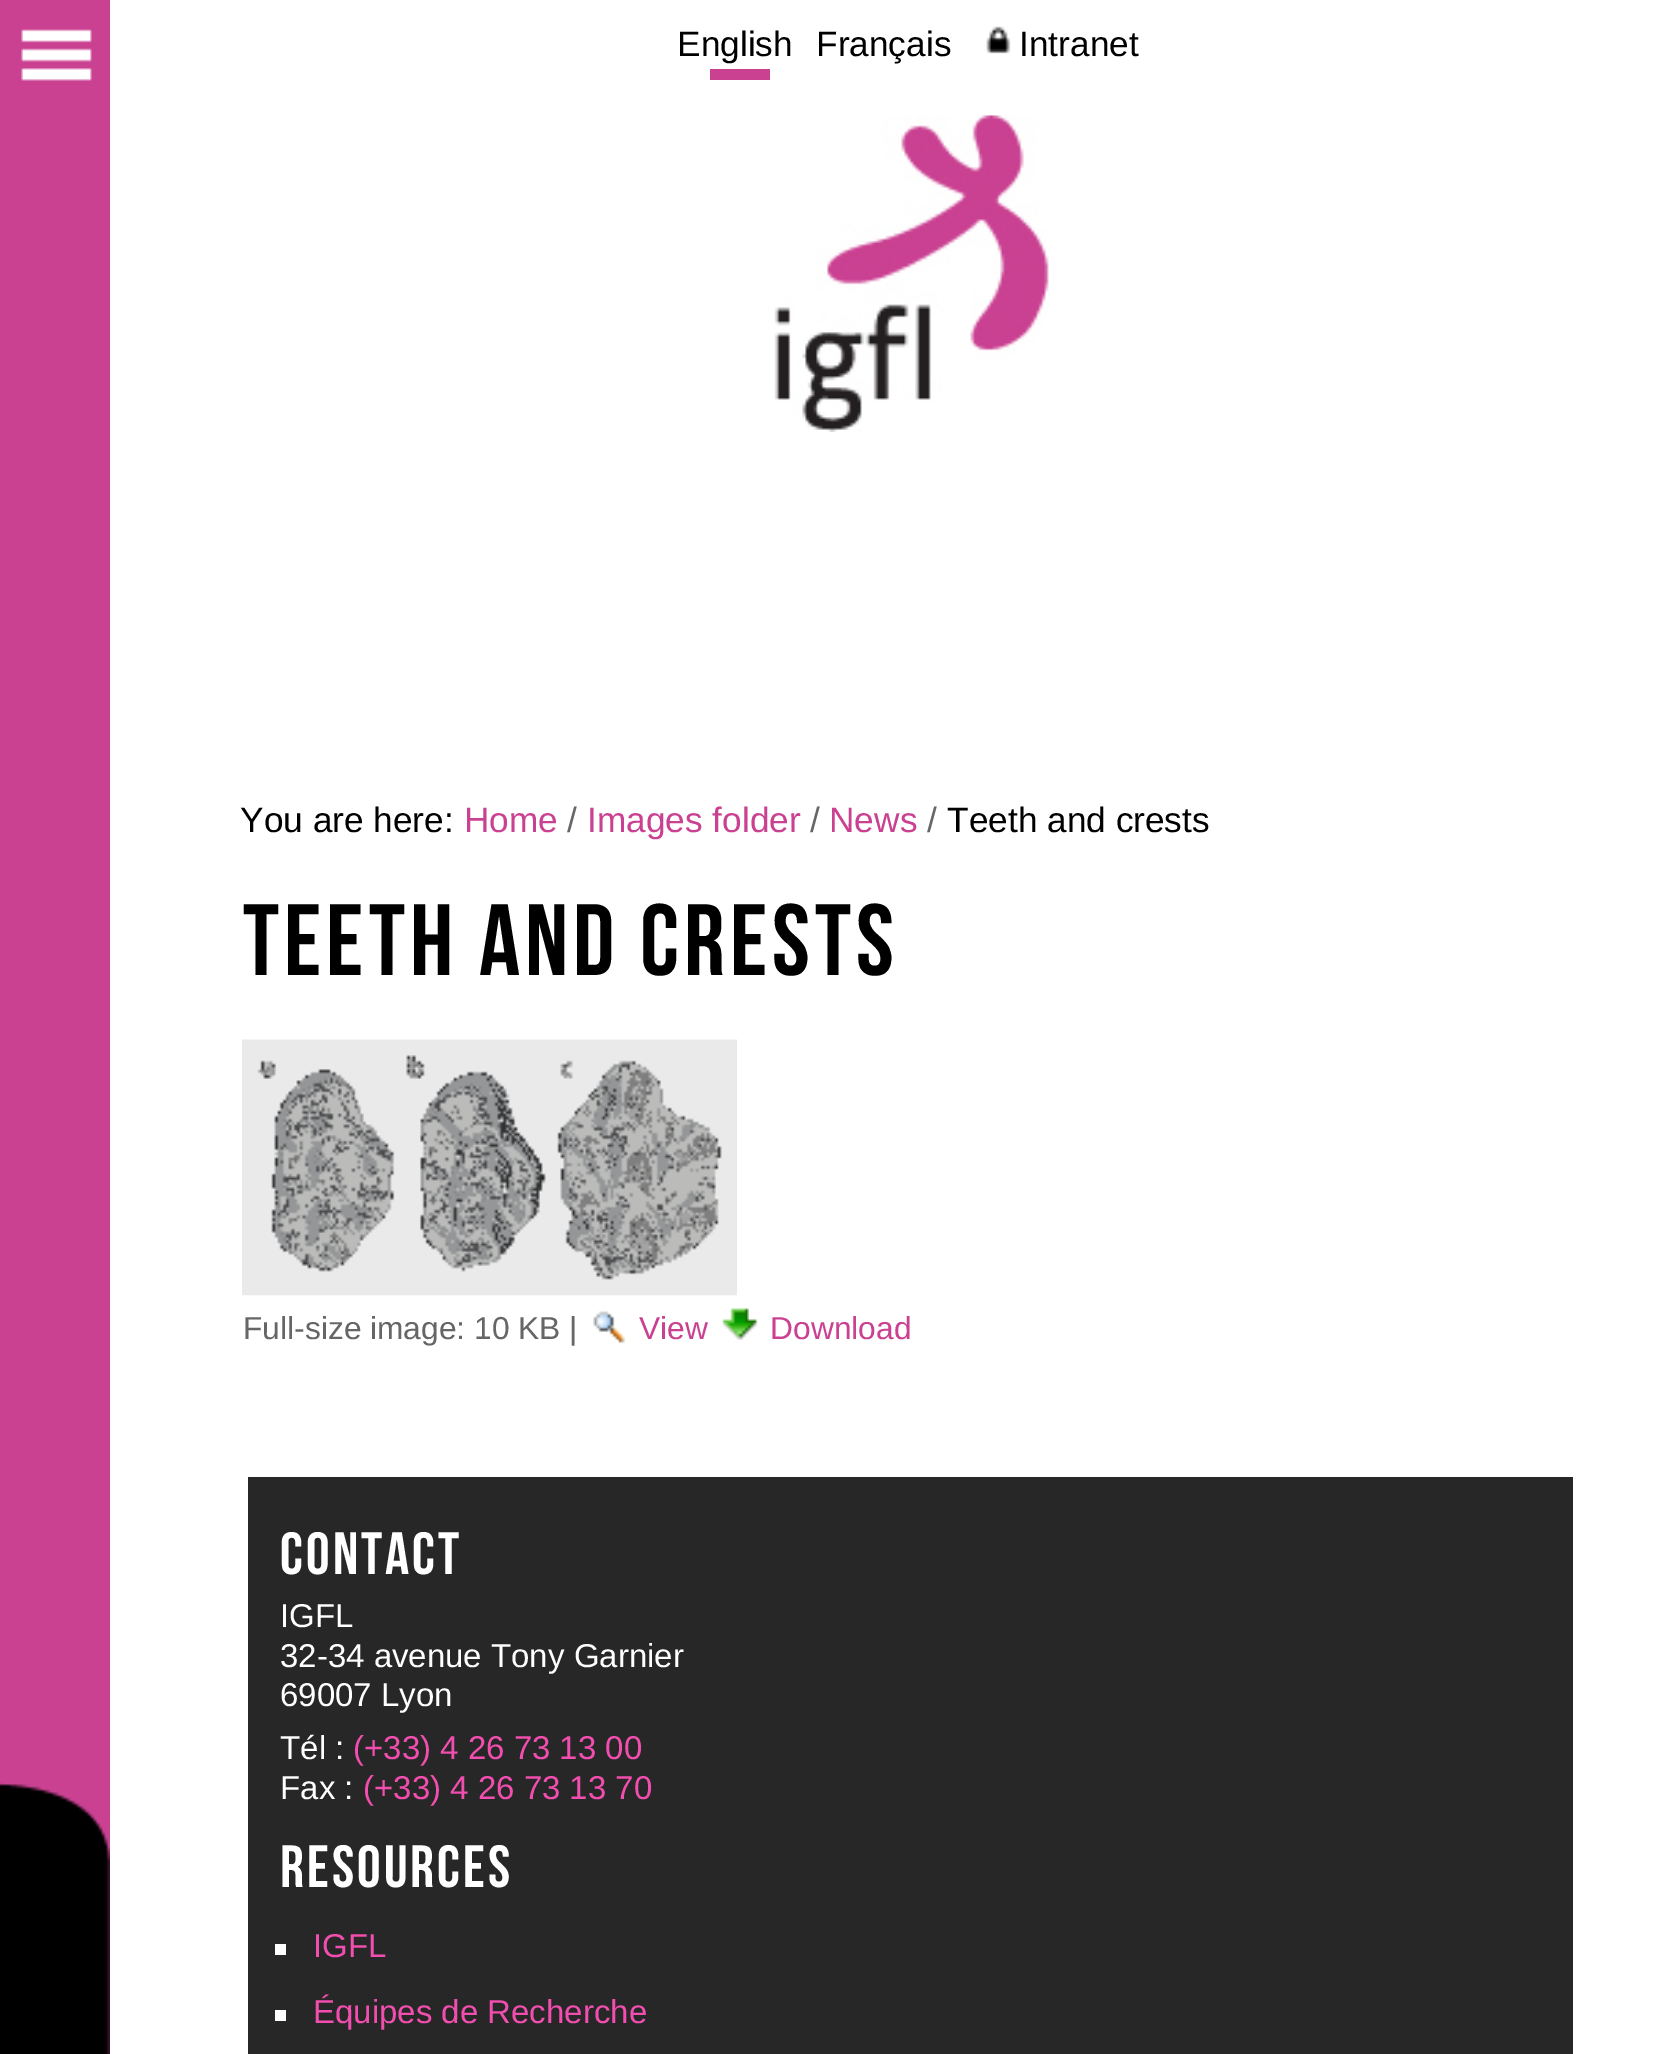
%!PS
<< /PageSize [1655 2054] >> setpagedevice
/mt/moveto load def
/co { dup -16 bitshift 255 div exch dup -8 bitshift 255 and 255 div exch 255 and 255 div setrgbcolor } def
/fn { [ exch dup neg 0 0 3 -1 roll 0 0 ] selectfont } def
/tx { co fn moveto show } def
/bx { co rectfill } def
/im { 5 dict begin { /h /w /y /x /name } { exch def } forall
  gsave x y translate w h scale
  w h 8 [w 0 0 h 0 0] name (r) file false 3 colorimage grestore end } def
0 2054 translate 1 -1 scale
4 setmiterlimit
0 0 1655 2054 16#FFFFFF bx
0 0 110 2054 16#CA4192 bx
(media/1.raw) 0 1782 110 272 im
(media/2.raw) 21 29 71 52 im
710 69 60 11 16#CA4192 bx
(media/3.raw) 986 26 25 28 im
(media/4.raw) 774 115 275 317 im
(media/5.raw) 242 1039 495 257 im
(media/6.raw) 593 1311 33 32 im
(media/7.raw) 722 1308 36 32 im
248 1477 1325 577 16#272727 bx
275 1944 11 11 16#FFFFFF bx
275 2010 11 11 16#FFFFFF bx
(English) 677 56 /LiberationSans-Regular 35.25 16#000000 tx
(Français) 816 56 /LiberationSans-Regular 35.25 16#000000 tx
(Intranet) 1019 56 /LiberationSans-Regular 35.25 16#000000 tx
(You are here:) 240 832 /LiberationSans-Regular 35.25 16#000000 tx
(Home) 464 832 /LiberationSans-Regular 35.25 16#CA4192 tx
(/) 567 832 /LiberationSans-Regular 35.25 16#666666 tx
(Images folder) 587 832 /LiberationSans-Regular 35.25 16#CA4192 tx
(/) 810 832 /LiberationSans-Regular 35.25 16#666666 tx
(News) 829 832 /LiberationSans-Regular 35.25 16#CA4192 tx
(/) 927 832 /LiberationSans-Regular 35.25 16#666666 tx
(Teeth and crests) 947 832 /LiberationSans-Regular 35.25 16#000000 tx
/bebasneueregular-Regular 101.25 fn
243 975 mt 5 0 (Teeth and crests) ashow
(Full-size image: 10 KB |) 243 1339 /LiberationSans-Regular 31.75 16#666666 tx
(View) 639 1339 /LiberationSans-Regular 31.75 16#CA4192 tx
(Download) 770 1339 /LiberationSans-Regular 31.75 16#CA4192 tx
/bebasneueregular-Regular 59.5 fn
16#FFFFFF co
280 1574 mt 3 0 (Contact) ashow
(IGFL) 280 1627 /LiberationSans-Regular 33 16#FFFFFF tx
(32-34 avenue Tony Garnier) 280 1667 /LiberationSans-Regular 33 16#FFFFFF tx
(69007 Lyon) 280 1706 /LiberationSans-Regular 33 16#FFFFFF tx
(Tél :) 280 1759 /LiberationSans-Regular 33 16#FFFFFF tx
(\(+33\) 4 26 73 13 00) 353 1759 /LiberationSans-Regular 33 16#F24EAF tx
(Fax :) 280 1799 /LiberationSans-Regular 33 16#FFFFFF tx
(\(+33\) 4 26 73 13 70) 363 1799 /LiberationSans-Regular 33 16#F24EAF tx
/bebasneueregular-Regular 59.5 fn
16#FFFFFF co
280 1887 mt 3 0 (Resources) ashow
(IGFL) 313 1957 /LiberationSans-Regular 33 16#F24EAF tx
(Équipes de Recherche) 313 2023 /LiberationSans-Regular 33 16#F24EAF tx
showpage
